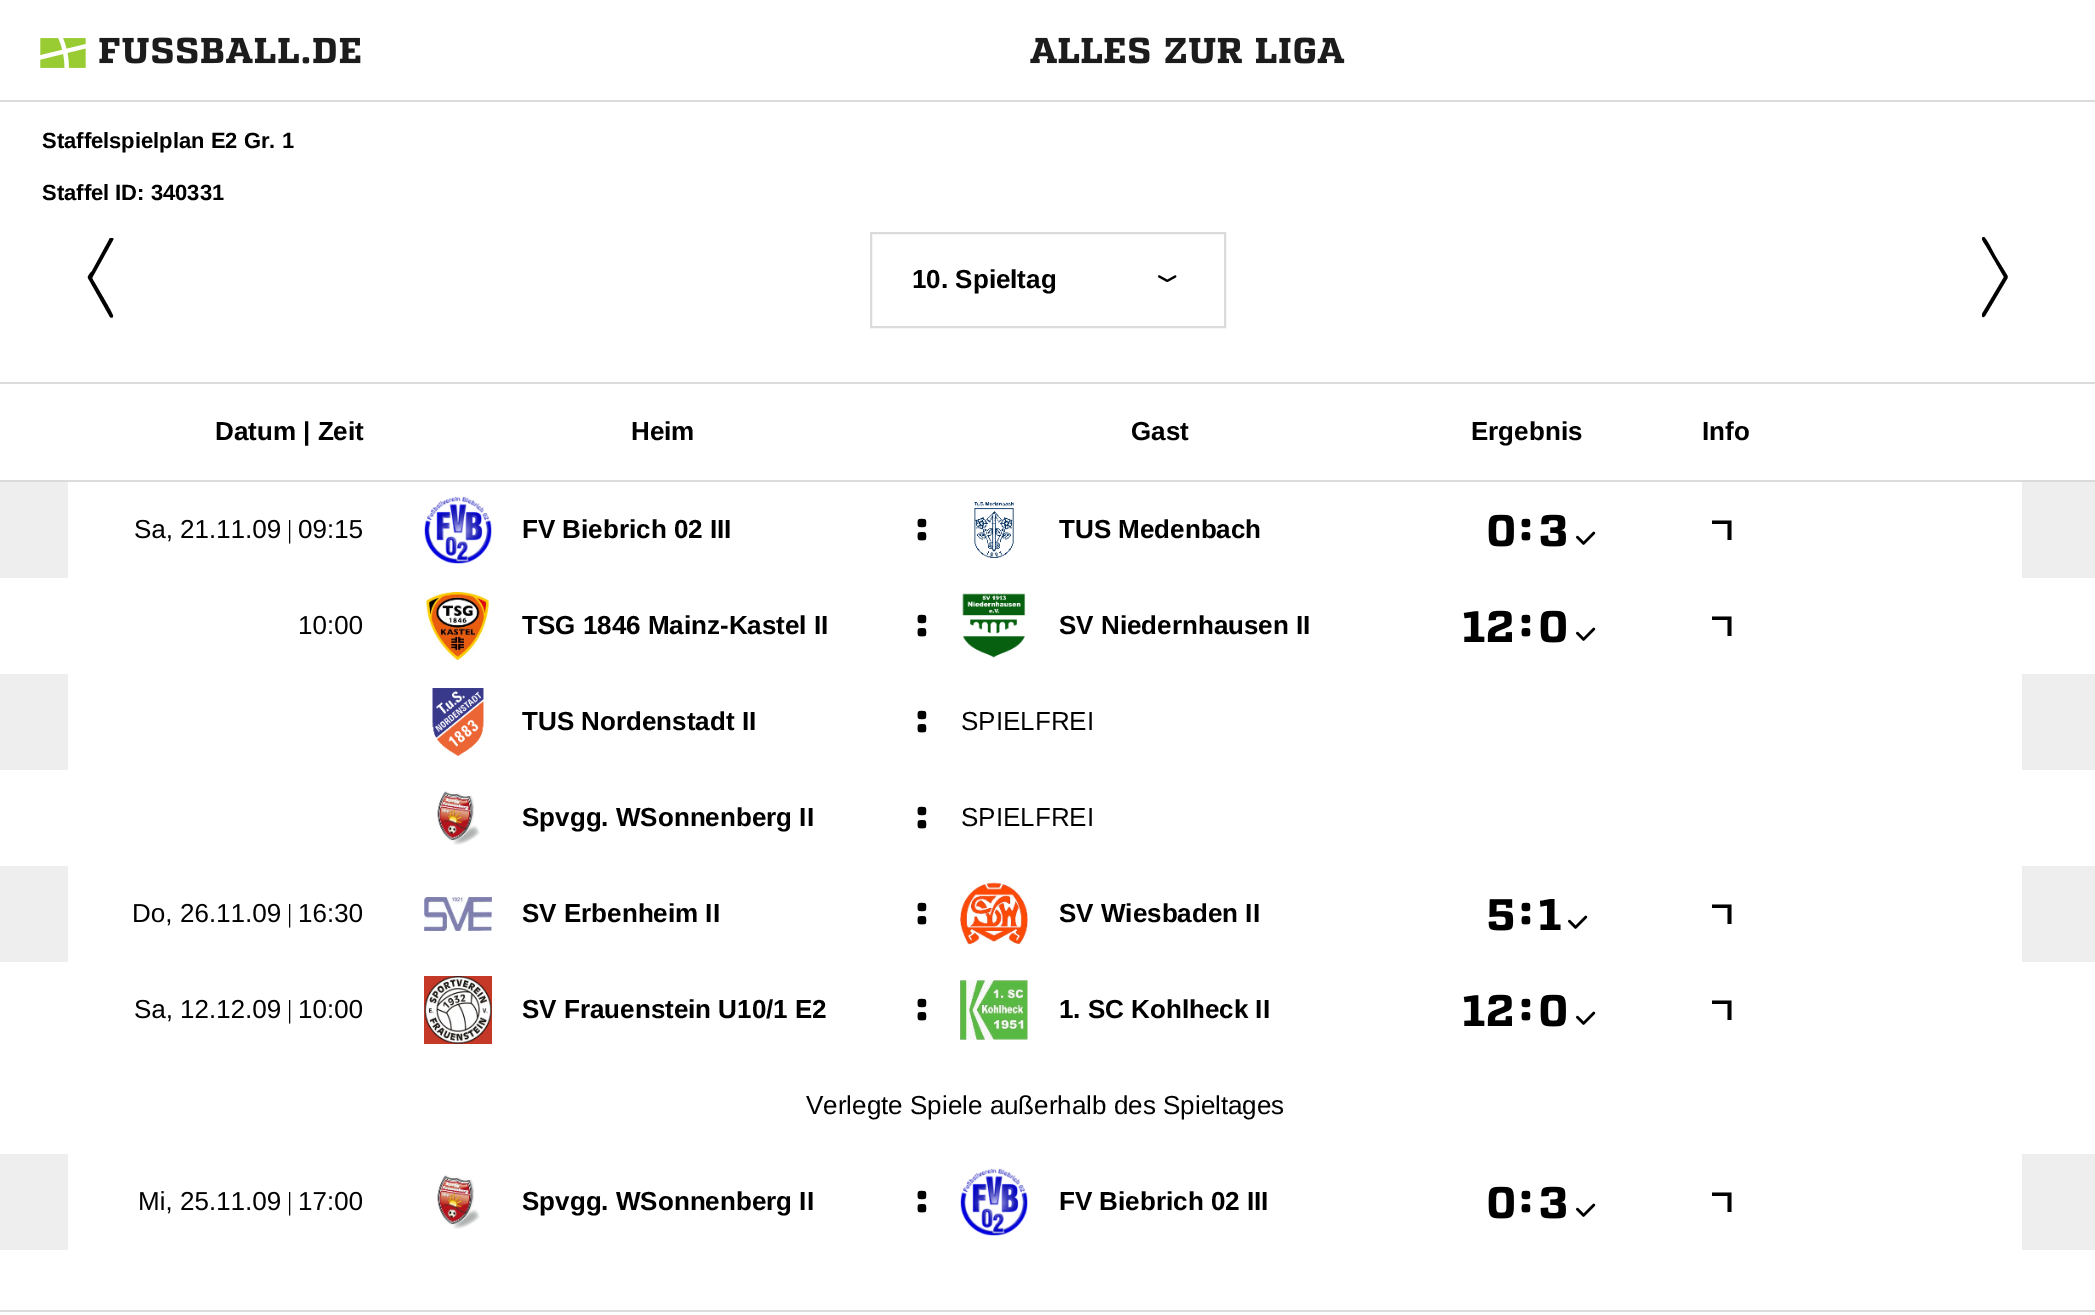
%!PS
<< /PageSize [2095 1315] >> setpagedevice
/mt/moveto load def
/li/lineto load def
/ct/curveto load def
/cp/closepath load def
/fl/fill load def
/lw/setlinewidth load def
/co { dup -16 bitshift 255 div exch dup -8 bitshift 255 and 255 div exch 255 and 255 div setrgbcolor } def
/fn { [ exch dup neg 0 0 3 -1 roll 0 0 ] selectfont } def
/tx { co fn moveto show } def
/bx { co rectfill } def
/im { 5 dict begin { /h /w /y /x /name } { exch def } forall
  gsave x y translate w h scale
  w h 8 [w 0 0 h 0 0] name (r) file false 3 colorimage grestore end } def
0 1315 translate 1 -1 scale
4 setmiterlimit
0 0 2095 1315 16#FFFFFF bx
0 100 2095 2 16#DBDBDB bx
(media/1.raw) 40 38 46 30 im
(media/2.raw) 99 37 262 27 im
(media/3.raw) 1030 37 315 27 im
16#000000 co
113 240 mt 92 278 li 94 282 114 315 113 316 ct 113 318 111 318 110 317 ct 88 278 li 87 276 92 271 92 271 ct 110 238 li 112 238 li 113 238 114 239 113 240 ct cp fl
16#DBDBDB co
2 lw
871 233 354 94 rectstroke
(media/4.raw) 1158 275 19 8 im
16#000000 co
1982 314 mt 2004 277 li 1986 246 li 1985 244 1979 237 1984 237 ct 1987 239 1994 254 1996 257 ct 2004 270 li 2009 279 2009 275 2004 284 ct 1985 316 li 1983 318 1982 317 1982 315 ct cp fl
0 382 2095 2 16#DBDBDB bx
0 480 2095 2 16#DBDBDB bx
0 482 2095 96 16#EEEEEE bx
68 482 1954 96 16#FFFFFF bx
(media/5.raw) 135 519 36 23 im
(media/6.raw) 181 519 99 20 im
(media/7.raw) 299 519 63 20 im
(media/8.raw) 424 496 68 68 im
(media/9.raw) 917 518 10 23 im
(media/10.raw) 974 502 40 56 im
(media/11.raw) 1488 514 26 33 im
(media/9.raw) 1521 518 10 23 im
(media/12.raw) 1540 514 26 33 im
(media/13.raw) 1576 531 20 14 im
16#000000 co
1727.5 540 mt 1727.5 524 li 1712 524 li 1712 520.5 li 1731.5 520.5 li 1731.5 540 li cp fl
(media/14.raw) 300 615 63 20 im
(media/15.raw) 426 592 63 68 im
(media/9.raw) 917 614 10 23 im
(media/16.raw) 962 593 64 65 im
(media/17.raw) 1463 610 49 32 im
(media/9.raw) 1521 614 10 23 im
(media/11.raw) 1540 610 26 33 im
(media/13.raw) 1576 627 20 14 im
1727.5 636 mt 1727.5 620 li 1712 620 li 1712 616.5 li 1731.5 616.5 li 1731.5 636 li cp fl
0 674 2095 96 16#EEEEEE bx
68 674 1954 96 16#FFFFFF bx
(media/18.raw) 432 688 52 68 im
(media/9.raw) 917 710 10 23 im
(media/19.raw) 437 790 43 55 im
(media/9.raw) 917 806 10 23 im
0 866 2095 96 16#EEEEEE bx
68 866 1954 96 16#FFFFFF bx
(media/20.raw) 134 904 37 22 im
(media/21.raw) 181 903 99 20 im
(media/22.raw) 300 903 63 20 im
(media/23.raw) 424 897 68 34 im
(media/9.raw) 917 902 10 23 im
(media/24.raw) 960 882 68 63 im
(media/25.raw) 1488 899 26 32 im
(media/9.raw) 1521 902 10 23 im
16#000000 co
1560.5 930 mt 1540.5 930 li 1540.5 924.5 li 1547 924.5 li 1547 905.5 li 1540.5 906.5 li 1540 901 li 1551 899 li 1554.5 899 li 1554.5 924.5 li 1560.5 924.5 li cp fl
(media/13.raw) 1568 915 20 14 im
1727.5 924 mt 1727.5 908 li 1712 908 li 1712 904.5 li 1731.5 904.5 li 1731.5 924 li cp fl
(media/5.raw) 135 999 36 23 im
(media/26.raw) 182 999 98 20 im
(media/14.raw) 300 999 63 20 im
(media/27.raw) 424 976 68 68 im
(media/9.raw) 917 998 10 23 im
(media/28.raw) 960 980 68 60 im
(media/17.raw) 1463 994 49 32 im
(media/9.raw) 1521 998 10 23 im
(media/11.raw) 1540 994 26 33 im
(media/13.raw) 1576 1011 20 14 im
1727.5 1020 mt 1727.5 1004 li 1712 1004 li 1712 1000.5 li 1731.5 1000.5 li 1731.5 1020 li cp fl
0 1154 2095 96 16#EEEEEE bx
68 1154 1954 96 16#FFFFFF bx
(media/29.raw) 140 1191 31 23 im
(media/30.raw) 181 1191 99 20 im
(media/31.raw) 300 1191 63 20 im
(media/32.raw) 437 1174 43 55 im
(media/9.raw) 917 1190 10 23 im
(media/33.raw) 960 1168 68 68 im
(media/11.raw) 1488 1186 26 33 im
(media/9.raw) 1521 1190 10 23 im
(media/12.raw) 1540 1186 26 33 im
(media/13.raw) 1576 1203 20 14 im
16#000000 co
1727.5 1212 mt 1727.5 1196 li 1712 1196 li 1712 1192.5 li 1731.5 1192.5 li 1731.5 1212 li cp fl
0 1310 2095 2 16#DBDBDB bx
(Staffelspielplan E2 Gr. 1) 42 148 /LiberationSans-Bold 22 16#000000 tx
(Staffel ID: 340331) 42 200 /LiberationSans-Bold 22 16#000000 tx
(10. Spieltag) 912 288 /LiberationSans-Bold 26 16#000000 tx
(Datum | Zeit) 215 440 /LiberationSans-Bold 26 16#000000 tx
(Heim) 631 440 /LiberationSans-Bold 26 16#000000 tx
(Gast) 1131 440 /LiberationSans-Bold 26 16#000000 tx
(Ergebnis) 1471 440 /LiberationSans-Bold 26 16#000000 tx
(Info) 1702 440 /LiberationSans-Bold 26 16#000000 tx
(|) 287 538 /LiberationSerif-Regular 26 16#000000 tx
(FV Biebrich 02 III) 522 538 /LiberationSans-Bold 26 16#000000 tx
(TUS Medenbach) 1059 538 /LiberationSans-Bold 26 16#000000 tx
(TSG 1846 Mainz-Kastel II) 522 634 /LiberationSans-Bold 26 16#000000 tx
(SV Niedernhausen II) 1059 634 /LiberationSans-Bold 26 16#000000 tx
(TUS Nordenstadt II) 522 730 /LiberationSans-Bold 26 16#000000 tx
(SPIELFREI) 961 730 /LiberationSans-Regular 26 16#000000 tx
(Spvgg. WSonnenberg II) 522 826 /LiberationSans-Bold 26 16#000000 tx
(SPIELFREI) 961 826 /LiberationSans-Regular 26 16#000000 tx
(|) 287 922 /LiberationSerif-Regular 26 16#000000 tx
(SV Erbenheim II) 522 922 /LiberationSans-Bold 26 16#000000 tx
(SV Wiesbaden II) 1059 922 /LiberationSans-Bold 26 16#000000 tx
(|) 287 1018 /LiberationSerif-Regular 26 16#000000 tx
(SV Frauenstein U10/1 E2) 522 1018 /LiberationSans-Bold 26 16#000000 tx
(1. SC Kohlheck II) 1059 1018 /LiberationSans-Bold 26 16#000000 tx
(Verlegte Spiele außerhalb des Spieltages) 806 1114 /LiberationSans-Regular 26 16#000000 tx
(|) 287 1210 /LiberationSerif-Regular 26 16#000000 tx
(Spvgg. WSonnenberg II) 522 1210 /LiberationSans-Bold 26 16#000000 tx
(FV Biebrich 02 III) 1059 1210 /LiberationSans-Bold 26 16#000000 tx
showpage
